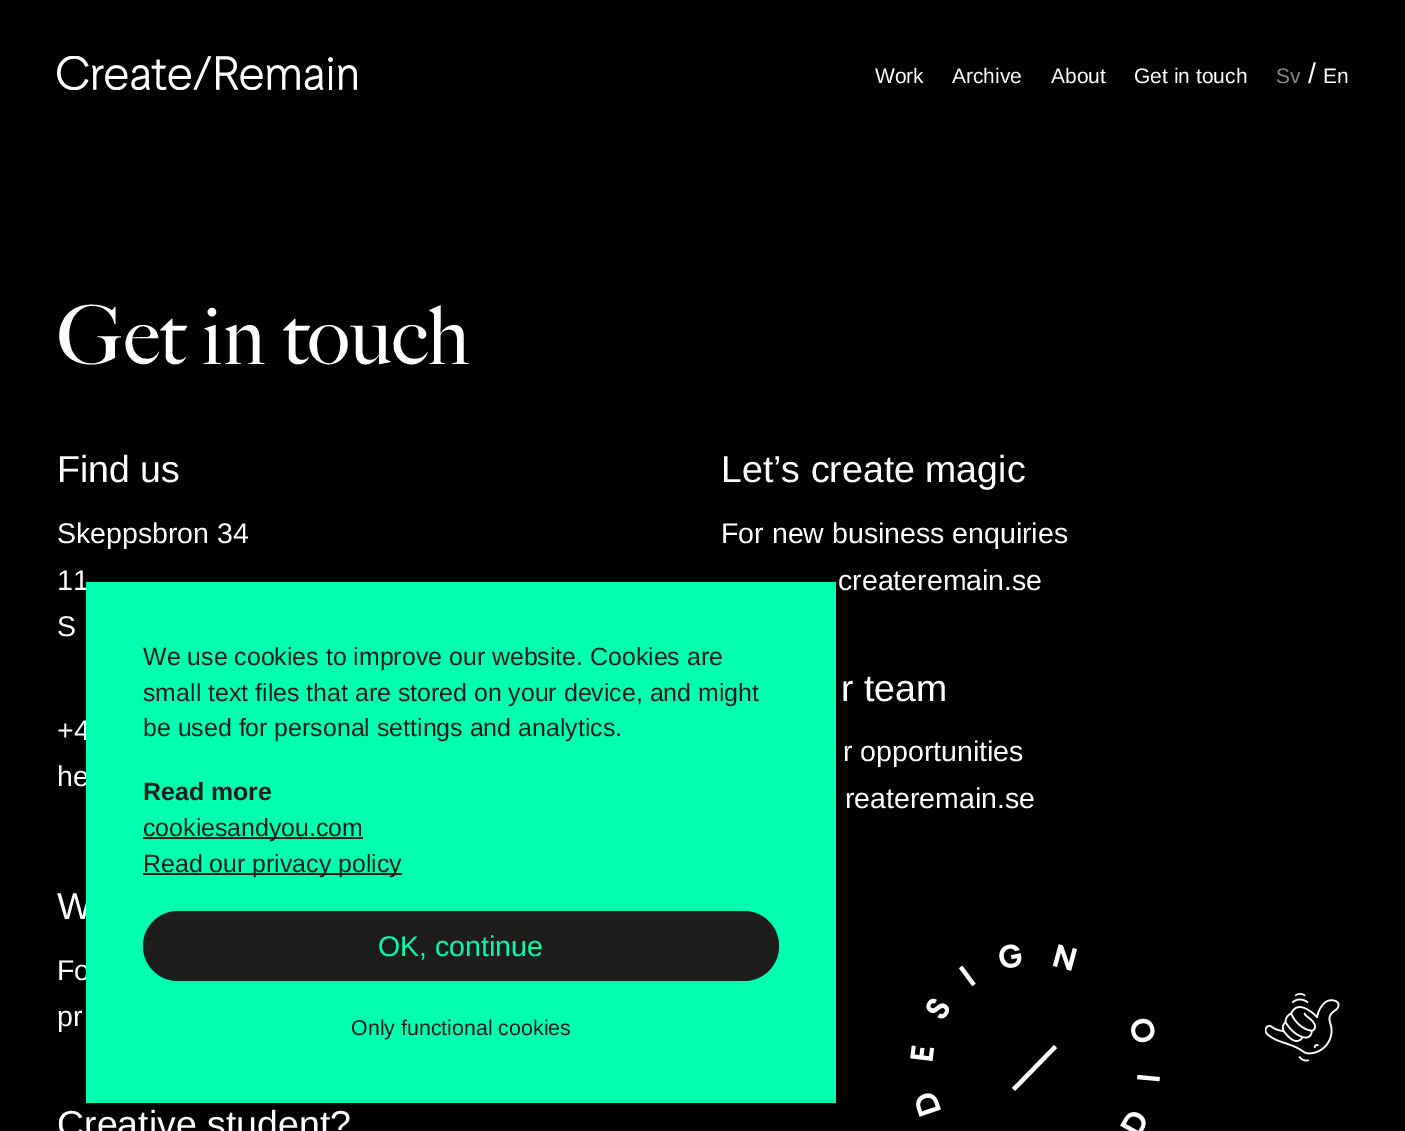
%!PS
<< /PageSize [1405 1131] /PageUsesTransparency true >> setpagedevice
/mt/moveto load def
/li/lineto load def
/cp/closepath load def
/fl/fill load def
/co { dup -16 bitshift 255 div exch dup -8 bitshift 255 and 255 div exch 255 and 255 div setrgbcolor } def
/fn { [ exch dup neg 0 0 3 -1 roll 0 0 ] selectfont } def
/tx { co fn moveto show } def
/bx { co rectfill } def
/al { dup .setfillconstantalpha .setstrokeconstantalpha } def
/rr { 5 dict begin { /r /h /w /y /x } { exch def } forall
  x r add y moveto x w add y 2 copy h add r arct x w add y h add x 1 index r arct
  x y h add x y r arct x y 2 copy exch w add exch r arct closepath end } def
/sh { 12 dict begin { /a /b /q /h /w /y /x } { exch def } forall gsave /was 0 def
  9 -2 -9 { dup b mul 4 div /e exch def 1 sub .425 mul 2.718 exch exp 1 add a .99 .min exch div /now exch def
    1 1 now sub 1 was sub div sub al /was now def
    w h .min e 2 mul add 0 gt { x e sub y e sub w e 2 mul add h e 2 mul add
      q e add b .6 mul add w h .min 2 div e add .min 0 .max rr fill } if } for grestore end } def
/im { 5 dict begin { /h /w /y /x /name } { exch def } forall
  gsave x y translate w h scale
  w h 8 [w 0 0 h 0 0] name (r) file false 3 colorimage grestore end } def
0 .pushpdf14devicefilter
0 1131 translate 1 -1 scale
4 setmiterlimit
0 0 1405 1131 16#000000 bx
(media/1.raw) 57 56 300 34 im
(media/2.raw) 910 944 250 187 im
16#FFFFFF co
1054 1045 mt 1057 1048 li 1015 1091 li 1012 1088 li cp fl
16#000000 co
86 611 750 520 0 28.5 .2 sh
(media/3.raw) 1265 993 75 69 im
(Work) 875 83 /LiberationSans-Regular 21 16#FFFFFF tx
(Archive) 952 83 /LiberationSans-Regular 21 16#FFFFFF tx
(About) 1051 83 /LiberationSans-Regular 21 16#FFFFFF tx
(Get in touch) 1134 83 /LiberationSans-Regular 21 16#FFFFFF tx
(Sv) 1276 83 /LiberationSans-Regular 21 16#868686 tx
(/) 1308 83 /LiberationSans-Regular 28.5 16#FFFFFF tx
(En) 1323 83 /LiberationSans-Regular 21 16#FFFFFF tx
(Get in touch) 57 364 /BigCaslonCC-Regular 81 16#FFFFFF tx
(Find us) 57 482 /LiberationSans-Regular 37.5 16#FFFFFF tx
(Skeppsbron 34) 57 543 /LiberationSans-Regular 28.5 16#FFFFFF tx
(11) 57 590 /LiberationSans-Regular 28.5 16#FFFFFF tx
(S) 57 636 /LiberationSans-Regular 28.5 16#FFFFFF tx
(+4) 57 740 /LiberationSans-Regular 28.5 16#FFFFFF tx
(he) 57 786 /LiberationSans-Regular 28.5 16#FFFFFF tx
(Let’s create magic) 721 482 /LiberationSans-Regular 37.5 16#FFFFFF tx
(For new business enquiries) 721 543 /LiberationSans-Regular 28.5 16#FFFFFF tx
(createremain.se) 838 590 /LiberationSans-Regular 28.5 16#FFFFFF tx
(r team) 841 701 /LiberationSans-Regular 37.5 16#FFFFFF tx
(r opportunities) 843 761 /LiberationSans-Regular 28.5 16#FFFFFF tx
(reateremain.se) 845 808 /LiberationSans-Regular 28.5 16#FFFFFF tx
(W) 57 919 /LiberationSans-Regular 37.5 16#FFFFFF tx
(Fo) 57 980 /LiberationSans-Regular 28.5 16#FFFFFF tx
(pr) 57 1026 /LiberationSans-Regular 28.5 16#FFFFFF tx
(Creative student?) 57 1137 /LiberationSans-Regular 37.5 16#FFFFFF tx
86 582 750 521 16#00FFAF bx
(We use cookies to improve our website. Cookies are) 143 665 /LiberationSans-Regular 24.9 16#1D1D1B tx
(small text files that are stored on your device, and might) 143 701 /LiberationSans-Regular 24.9 16#1D1D1B tx
(be used for personal settings and analytics.) 143 736 /LiberationSans-Regular 24.9 16#1D1D1B tx
(Read more) 143 800 /LiberationSans-Bold 24.9 16#1D1D1B tx
143 837 220 2 16#1D1D1B bx
(cookiesandyou.com) 143 836 /LiberationSans-Regular 24.9 16#1D1D1B tx
143 873 259 2 16#1D1D1B bx
(Read our privacy policy) 143 872 /LiberationSans-Regular 24.9 16#1D1D1B tx
143 911 636 70 35 rr fl
(OK, continue) 378 956 /LiberationSans-Regular 28.5 16#00FFAF tx
(Only functional cookies) 351 1035 /LiberationSans-Regular 21.4 16#1D1D1B tx
.poppdf14devicefilter showpage
